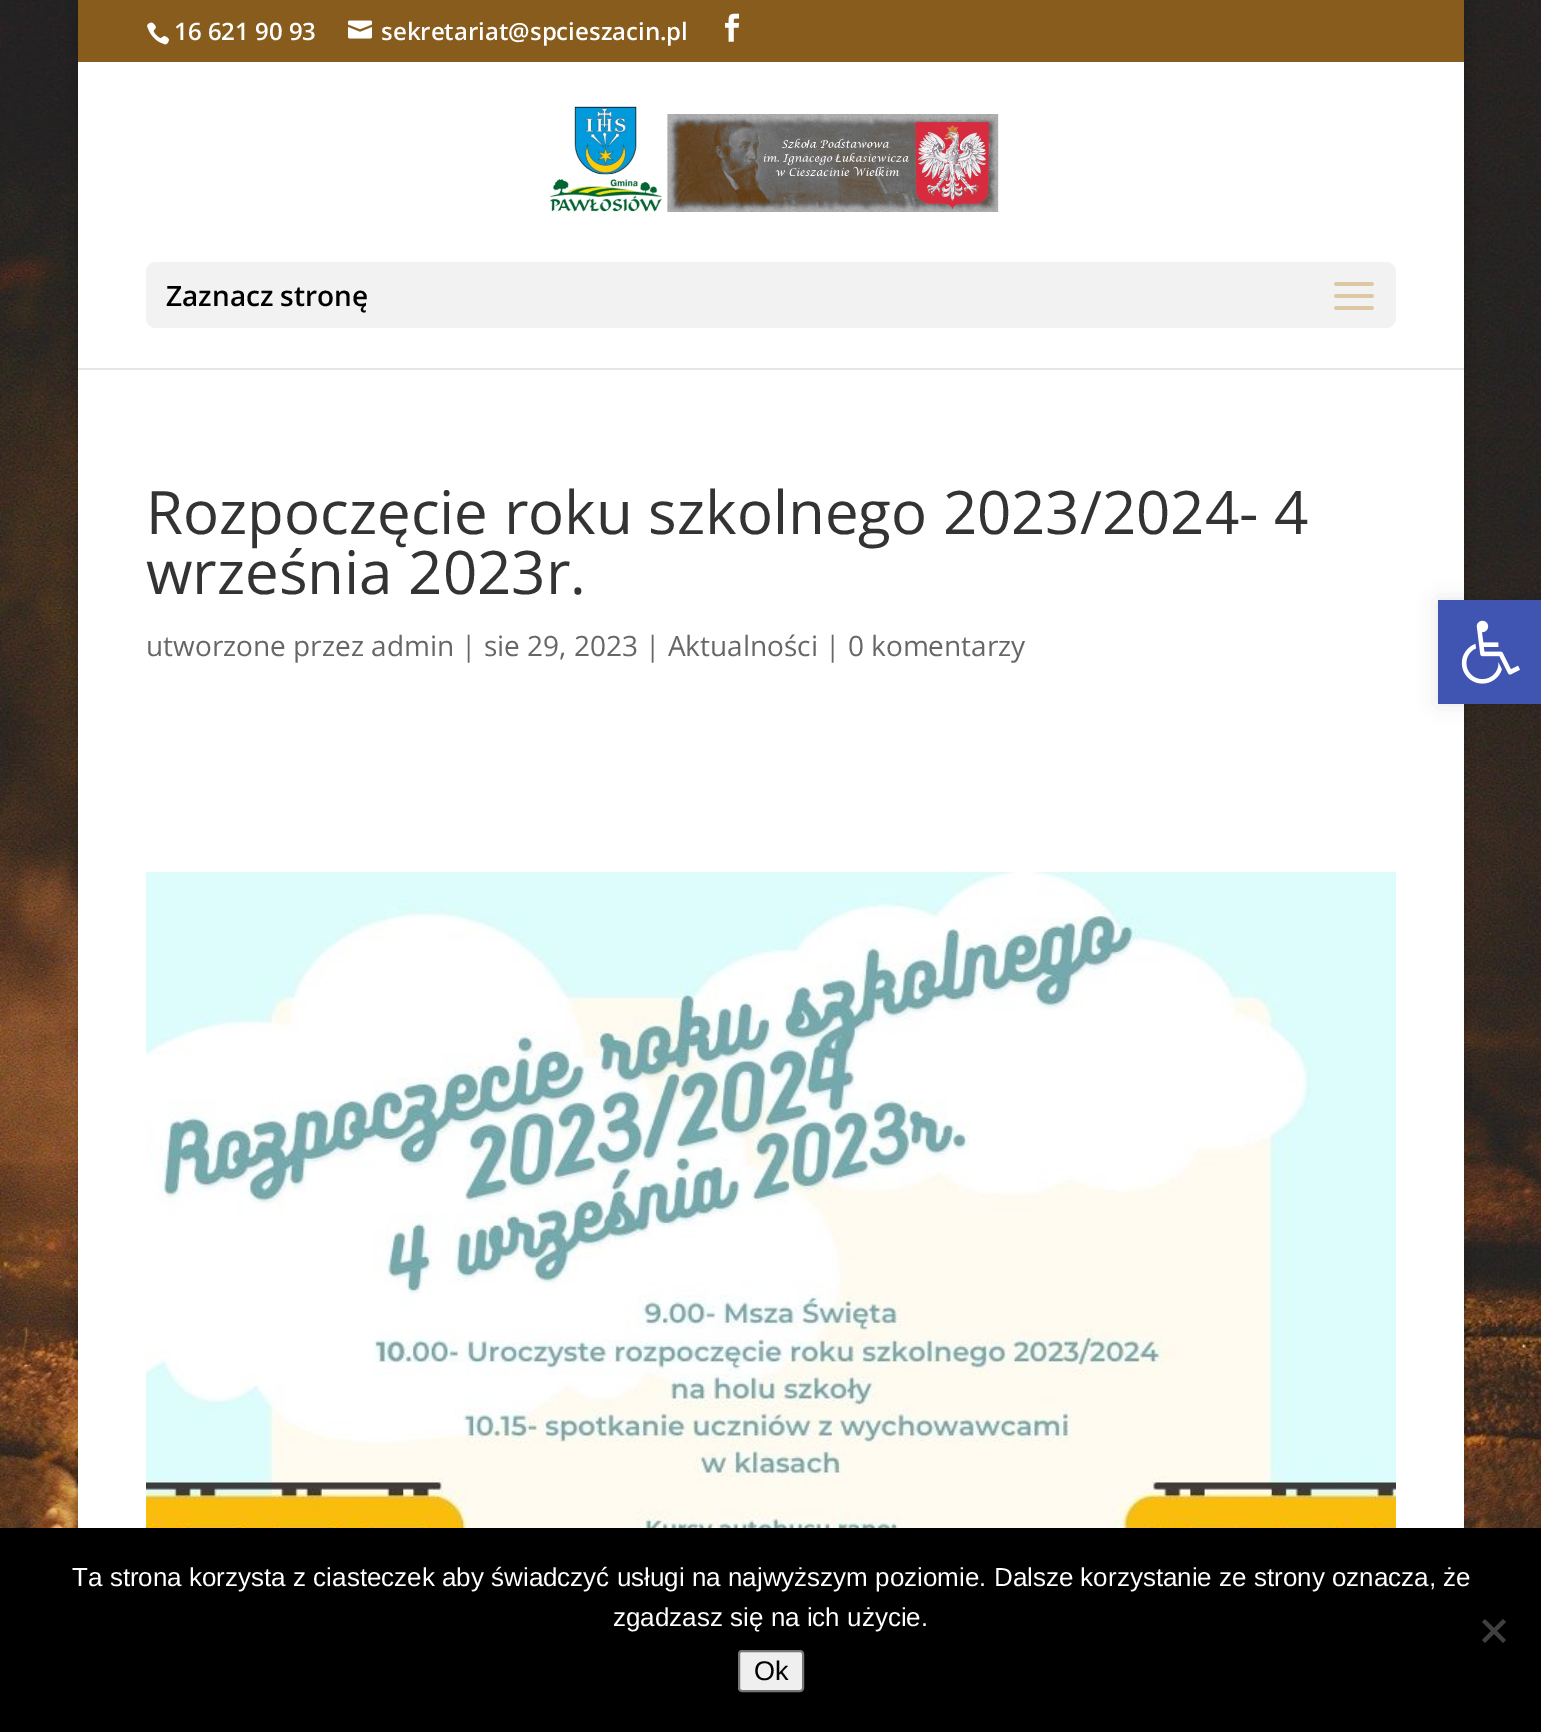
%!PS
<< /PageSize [1541 1732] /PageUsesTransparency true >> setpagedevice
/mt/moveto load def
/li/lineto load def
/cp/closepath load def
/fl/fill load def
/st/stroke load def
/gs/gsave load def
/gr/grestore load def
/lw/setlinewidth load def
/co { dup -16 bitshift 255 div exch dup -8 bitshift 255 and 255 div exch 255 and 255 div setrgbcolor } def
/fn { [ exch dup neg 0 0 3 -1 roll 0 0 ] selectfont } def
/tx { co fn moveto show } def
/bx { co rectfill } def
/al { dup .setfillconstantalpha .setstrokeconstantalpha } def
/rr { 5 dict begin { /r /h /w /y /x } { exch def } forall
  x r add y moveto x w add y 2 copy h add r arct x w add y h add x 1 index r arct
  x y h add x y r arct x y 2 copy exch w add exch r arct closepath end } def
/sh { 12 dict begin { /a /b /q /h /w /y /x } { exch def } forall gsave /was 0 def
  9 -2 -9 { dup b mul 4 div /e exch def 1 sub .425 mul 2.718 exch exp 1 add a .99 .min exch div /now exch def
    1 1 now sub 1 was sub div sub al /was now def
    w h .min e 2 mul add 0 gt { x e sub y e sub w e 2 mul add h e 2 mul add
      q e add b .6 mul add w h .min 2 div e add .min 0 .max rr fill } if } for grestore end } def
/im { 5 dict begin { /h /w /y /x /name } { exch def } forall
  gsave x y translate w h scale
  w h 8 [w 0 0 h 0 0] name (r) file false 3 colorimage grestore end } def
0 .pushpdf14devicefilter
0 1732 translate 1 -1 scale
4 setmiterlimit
0 0 1541 1732 16#FFFFFF bx
(media/1.raw) 0 0 1541 1528 im
16#000000 co
78 0 1386 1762 0 10 .2 sh
78 0 1386 62 16#885C1D bx
(media/2.raw) 147 22 22 23 im
(media/3.raw) 348 20 24 19 im
(media/4.raw) 725 13 15 29 im
78 368 1386 2 16#E6E6E6 bx
78 62 1386 306 16#FFFFFF bx
(media/5.raw) 549 106 450 106 im
16#F2F2F2 co
146 262 1250 66 10 rr fl
(media/6.raw) 1334 282 40 28 im
78 370 1386 1158 16#FFFFFF bx
(media/7.raw) 146 872 1250 656 im
16#000000 co
1438 600 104 104 0 10 .1 sh
1438 600 103 104 16#4054B2 bx
(media/8.raw) 1461 620 59 64 im
0 1528 1541 204 16#000000 bx
16#404040 co
1503 1619 mt 1506 1622 li 1485 1643 li 1482 1640 li cp fl
1482 1622 mt 1485 1619 li 1506 1640 li 1503 1643 li cp fl
16#EFEFEF co
739 1651 64 40 3 rr gs fl gr
16#767676 co
2 lw
st
(16 621 90 93) 174 40 /OpenSans-SemiBold 24 16#FFFFFF tx
(sekretariat@spcieszacin.pl) 381 40 /OpenSans-SemiBold 24 16#FFFFFF tx
(Zaznacz stronę) 166 306 /OpenSans-SemiBold 28 16#000000 tx
(Rozpoczęcie roku szkolnego 2023/2024- 4) 146 534 /OpenSans-Regular 60 16#333333 tx
(września 2023r.) 146 594 /OpenSans-Regular 60 16#333333 tx
(utworzone przez admin | sie 29, 2023 | Aktualności | 0 komentarzy) 146 656 /OpenSans-Regular 28 16#666666 tx
(Ta strona korzysta z ciasteczek aby świadczyć usługi na najwyższym poziomie. Dalsze korzystanie ze strony oznacza, że) 72 1586 /LiberationSans-Regular 26 16#FFFFFF tx
(zgadzasz się na ich użycie.) 613 1626 /LiberationSans-Regular 26 16#FFFFFF tx
(Ok) 754 1680 /LiberationSans-Regular 27 16#000000 tx
.poppdf14devicefilter showpage
